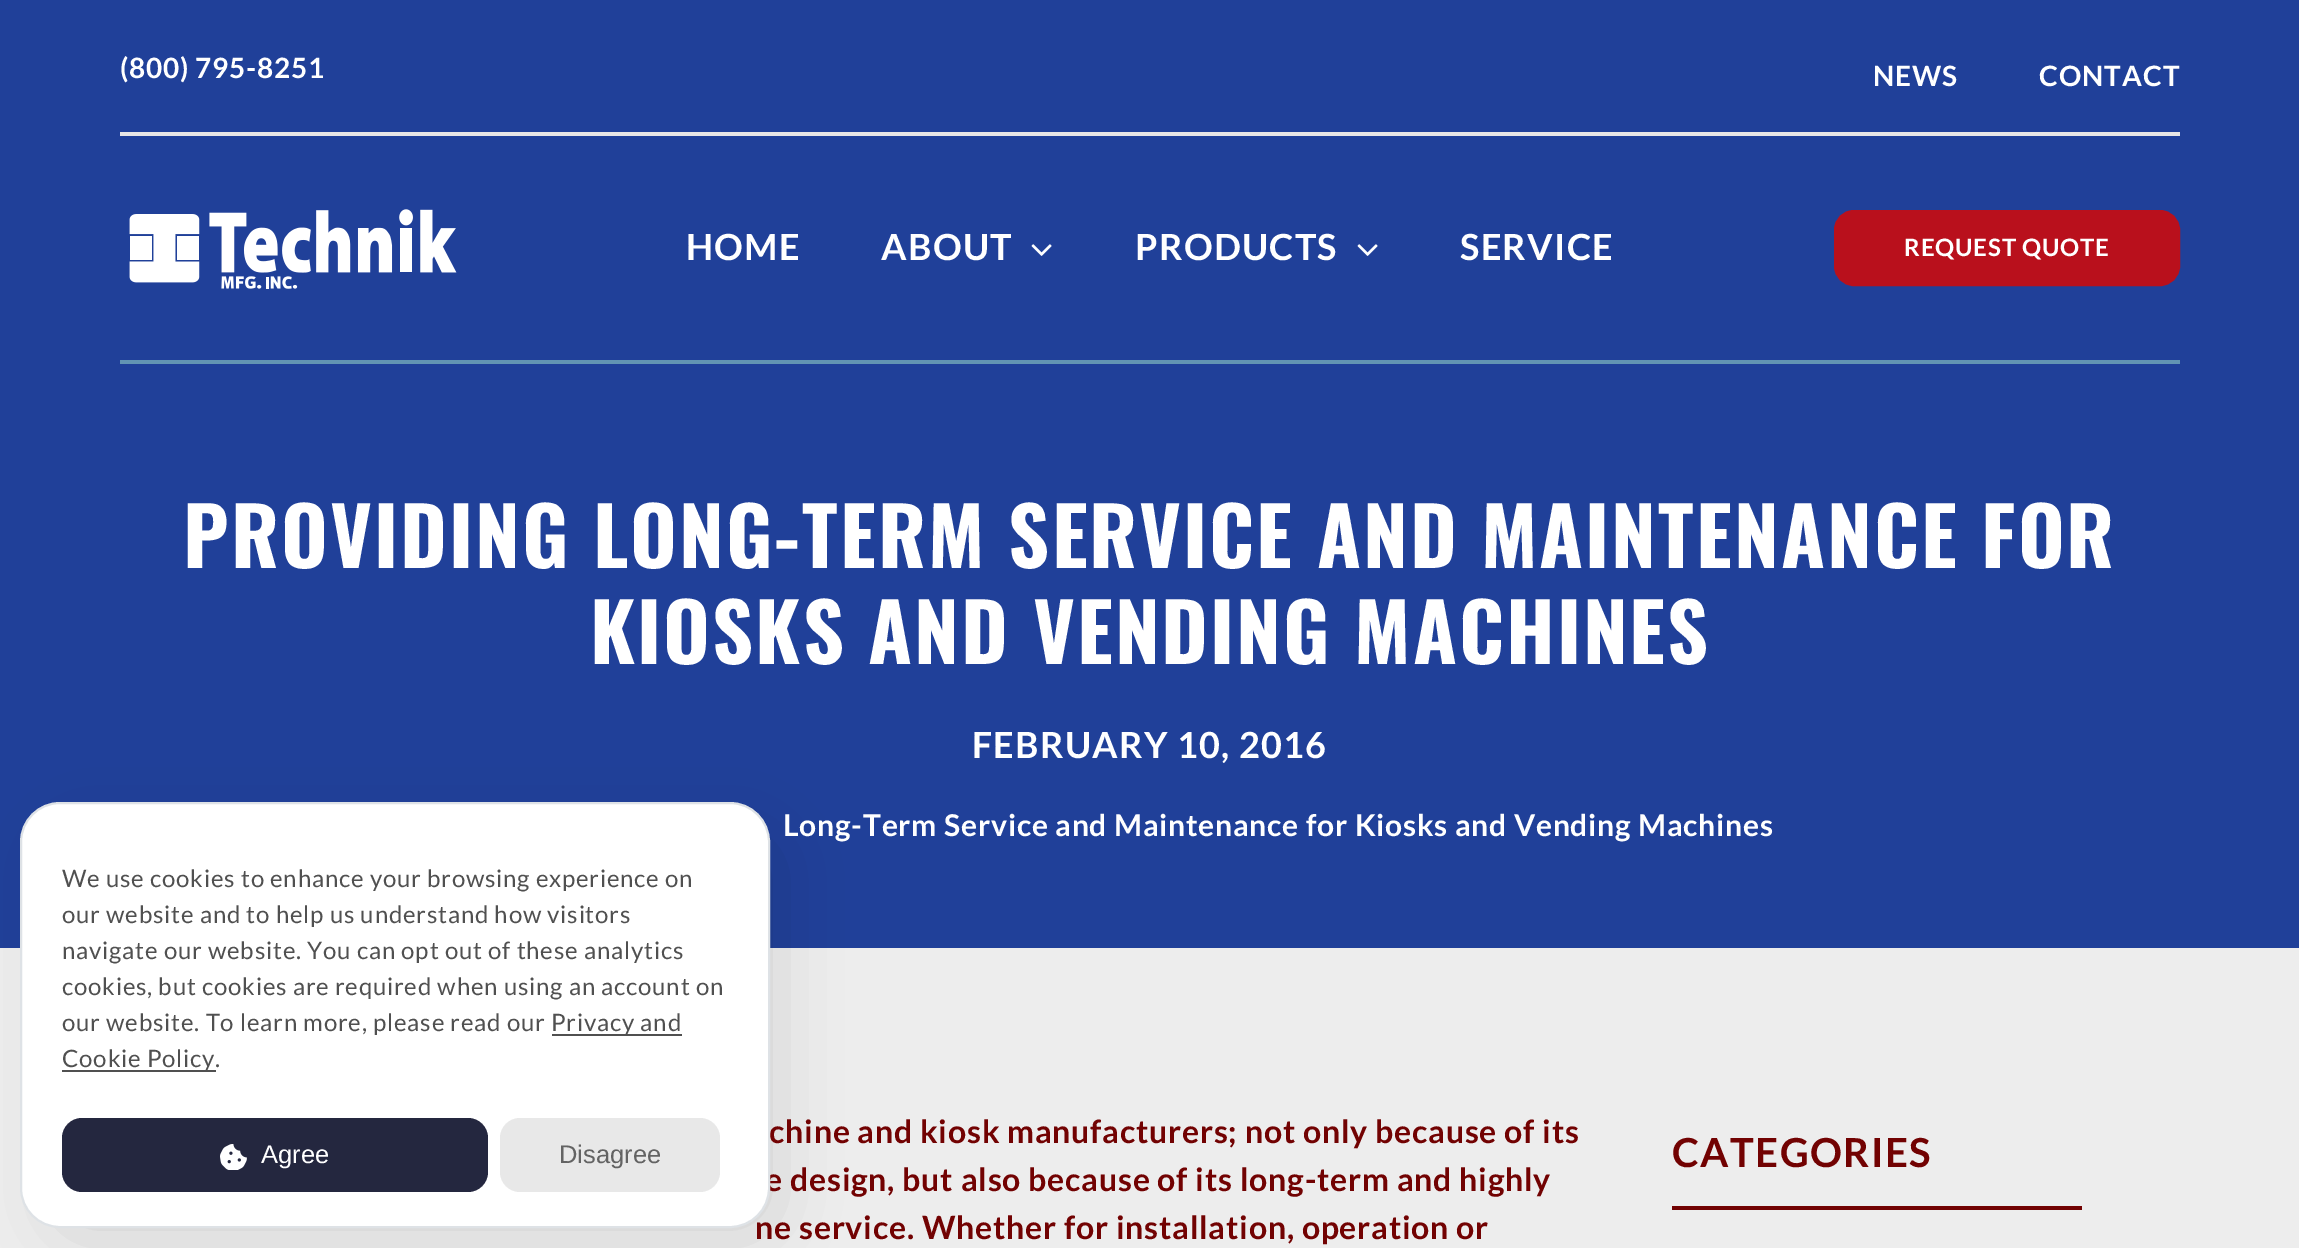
%!PS
<< /PageSize [2299 1248] /PageUsesTransparency true >> setpagedevice
/mt/moveto load def
/fl/fill load def
/st/stroke load def
/gs/gsave load def
/gr/grestore load def
/lw/setlinewidth load def
/co { dup -16 bitshift 255 div exch dup -8 bitshift 255 and 255 div exch 255 and 255 div setrgbcolor } def
/fn { [ exch dup neg 0 0 3 -1 roll 0 0 ] selectfont } def
/tx { co fn moveto show } def
/bx { co rectfill } def
/al { dup .setfillconstantalpha .setstrokeconstantalpha } def
/rr { 5 dict begin { /r /h /w /y /x } { exch def } forall
  x r add y moveto x w add y 2 copy h add r arct x w add y h add x 1 index r arct
  x y h add x y r arct x y 2 copy exch w add exch r arct closepath end } def
/sh { 12 dict begin { /a /b /q /h /w /y /x } { exch def } forall gsave /was 0 def
  9 -2 -9 { dup b mul 4 div /e exch def 1 sub .425 mul 2.718 exch exp 1 add a .99 .min exch div /now exch def
    1 1 now sub 1 was sub div sub al /was now def
    w h .min e 2 mul add 0 gt { x e sub y e sub w e 2 mul add h e 2 mul add
      q e add b .6 mul add w h .min 2 div e add .min 0 .max rr fill } if } for grestore end } def
/im { 5 dict begin { /h /w /y /x /name } { exch def } forall
  gsave x y translate w h scale
  w h 8 [w 0 0 h 0 0] name (r) file false 3 colorimage grestore end } def
0 .pushpdf14devicefilter
0 1248 translate 1 -1 scale
4 setmiterlimit
0 0 2299 1248 16#204099 bx
120 132 2060 4 16#E7E6E6 bx
(media/1.raw) 129 209 328 80 im
(media/2.raw) 1031 244 21 12 im
(media/2.raw) 1357 244 21 12 im
16#B9101C co
1837 213 340 70 17 rr gs fl gr
6 lw
st
120 360 2060 4 16#6294B3 bx
0 948 2299 300 16#EDEDED bx
1672 1206 410 4 16#720202 bx
16#000000 co
66 848 698 374 14 36 .15 sh
/Lato-Bold 28 fn
16#FFFFFF co
120 78 mt .75 0 (\(800\) 795-8251) ashow
1873 86 mt 1 0 (NEWS) ashow
2039 86 mt 1 0 (CONTACT) ashow
/Lato-Bold 36 fn
686 260 mt 1.25 0 (HOME) ashow
881 260 mt 1.25 0 (ABOUT) ashow
1135 260 mt 1.25 0 (PRODUCTS) ashow
1460 260 mt 1.25 0 (SERVICE) ashow
/Lato-Bold 24 fn
1904 256 mt .8 0 (REQUEST QUOTE) ashow
/Oswald-Bold 80 fn
183 568 mt 2 0 (PROVIDING LONG-TERM SERVICE AND MAINTENANCE FOR) ashow
590 664 mt 2 0 (KIOSKS AND VENDING MACHINES) ashow
/Lato-Bold 36 fn
972 758 mt 1.25 0 (FEBRUARY 10, 2016) ashow
/Lato-Bold 30 fn
783 836 mt .8 0 (Long-Term Service and Maintenance for Kiosks and Vending Machines) ashow
/Lato-Bold 32 fn
16#720202 co
769 1143 mt .8 0 (chine and kiosk manufacturers; not only because of its) ashow
765 1191 mt .8 0 (e design, but also because of its long-term and highly) ashow
755 1239 mt .8 0 (ne service. Whether for installation, operation or) ashow
/Lato-Bold 40 fn
1672 1167 mt 1.4 0 (CATEGORIES) ashow
16#FFFFFF co
21 803 748 424 39 rr gs fl gr
16#DEE2E6 co
2 lw
st
/Lato-Regular 24 fn
16#505050 co
62 887 mt .8 0 (We use cookies to enhance your browsing experience on) ashow
62 923 mt .8 0 (our website and to help us understand how visitors) ashow
62 959 mt .8 0 (navigate our website. You can opt out of these analytics) ashow
62 995 mt .8 0 (cookies, but cookies are required when using an account on) ashow
62 1031 mt .8 0 (our website. To learn more, please read our) ashow
552 1034 130 2 16#505050 bx
551 1031 mt .8 0 (Privacy and) ashow
62 1070 154 2 16#505050 bx
62 1067 mt .8 0 (Cookie Policy.) ashow
16#24273F co
62 1118 426 74 20 rr fl
(media/3.raw) 220 1144 27 26 im
(Agree) 261 1163 /LiberationSans-Regular 25.5 16#FFFFFF tx
16#E8E8E8 co
500 1118 220 74 20 rr fl
(Disagree) 559 1163 /LiberationSans-Regular 25.5 16#636363 tx
.poppdf14devicefilter showpage
